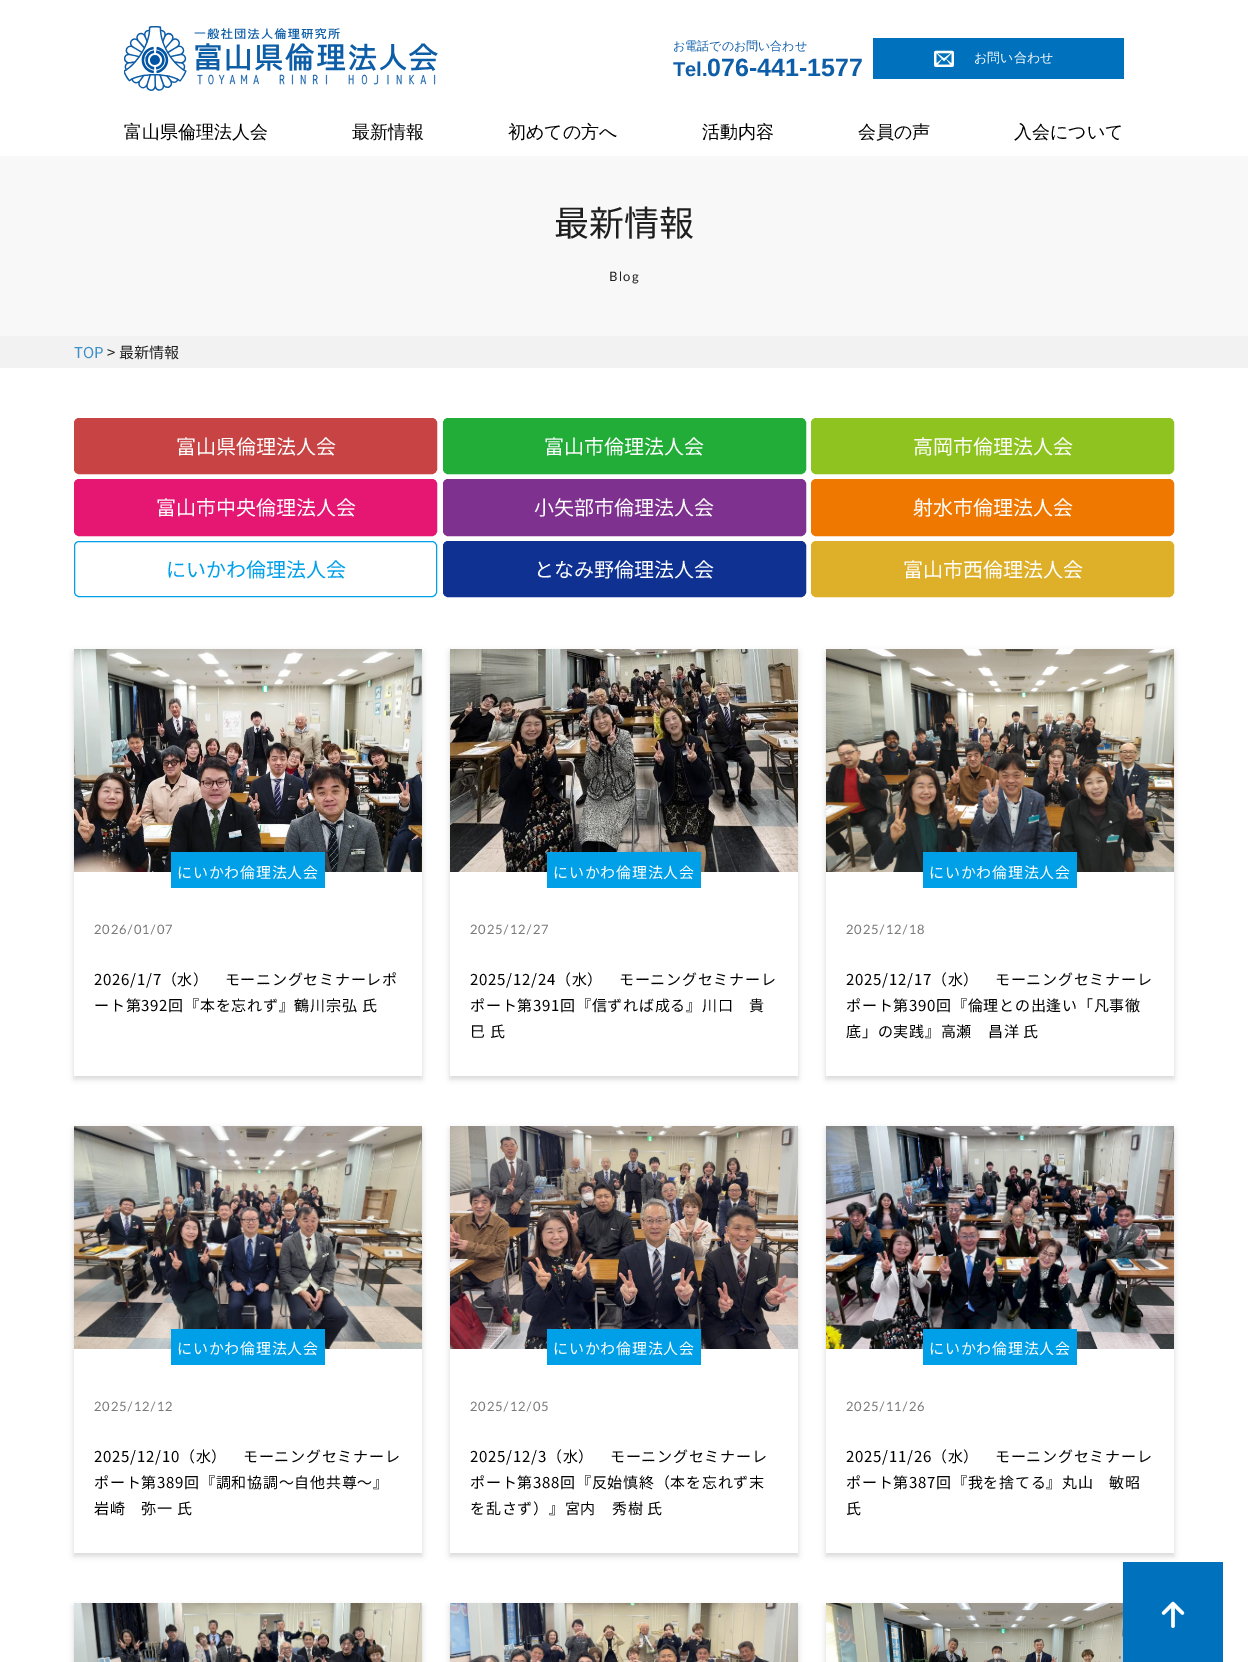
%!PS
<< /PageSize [1248 1662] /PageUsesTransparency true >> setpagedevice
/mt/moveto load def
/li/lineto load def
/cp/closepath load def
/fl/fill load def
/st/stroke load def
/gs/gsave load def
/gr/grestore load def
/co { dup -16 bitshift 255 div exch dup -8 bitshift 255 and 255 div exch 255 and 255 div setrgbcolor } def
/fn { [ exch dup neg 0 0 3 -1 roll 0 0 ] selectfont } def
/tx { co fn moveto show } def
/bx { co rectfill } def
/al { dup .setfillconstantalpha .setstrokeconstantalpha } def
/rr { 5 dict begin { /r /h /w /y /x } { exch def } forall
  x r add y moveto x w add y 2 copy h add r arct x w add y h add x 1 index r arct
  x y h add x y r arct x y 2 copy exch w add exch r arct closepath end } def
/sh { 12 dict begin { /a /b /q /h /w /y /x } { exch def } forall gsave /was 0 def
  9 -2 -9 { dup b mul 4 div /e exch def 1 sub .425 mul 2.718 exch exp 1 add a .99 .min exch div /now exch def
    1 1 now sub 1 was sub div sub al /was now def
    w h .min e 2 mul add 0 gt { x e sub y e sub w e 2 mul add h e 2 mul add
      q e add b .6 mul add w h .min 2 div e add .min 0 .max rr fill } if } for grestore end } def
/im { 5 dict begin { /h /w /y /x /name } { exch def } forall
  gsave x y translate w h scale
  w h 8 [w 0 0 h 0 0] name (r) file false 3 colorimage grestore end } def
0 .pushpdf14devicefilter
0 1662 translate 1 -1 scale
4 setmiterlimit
0 0 1248 1662 16#FFFFFF bx
(media/1.raw) 124 26 314 65 im
873 38 251 41 16#0071BC bx
(media/2.raw) 934 50 20 17 im
0 156 1248 180 16#F8F8F8 bx
0 336 1248 32 16#F2F2F2 bx
16#C74344 co
74.5 418.5 362 55 4.5 rr gs fl gr
st
16#22AC38 co
443.5 418.5 362 55 4.5 rr gs fl gr
st
16#8FC31F co
811.5 418.5 362 55 4.5 rr gs fl gr
st
16#E61673 co
74.5 479.5 362 56 4.5 rr gs fl gr
st
16#7E318E co
443.5 479.5 362 56 4.5 rr gs fl gr
st
16#EE7800 co
811.5 479.5 362 56 4.5 rr gs fl gr
st
16#00A0E9 co
74.5 541.5 362 55 4.5 rr st
16#0E3192 co
443.5 541.5 362 55 4.5 rr gs fl gr
st
16#DEAF29 co
811.5 541.5 362 55 4.5 rr gs fl gr
st
gs
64 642 mt 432 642 li 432 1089 li 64 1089 li cp 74 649 mt 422 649 li 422 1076 li 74 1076 li cp eoclip newpath
16#000000 co
74 652 348 427 0 3 .16 sh
gr
(media/3.raw) 74 649 348 223 im
171 852 154 36 16#00A0E9 bx
gs
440 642 mt 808 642 li 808 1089 li 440 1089 li cp 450 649 mt 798 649 li 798 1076 li 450 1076 li cp eoclip newpath
16#000000 co
450 652 348 427 0 3 .16 sh
gr
(media/4.raw) 450 649 348 223 im
547 852 154 36 16#00A0E9 bx
gs
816 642 mt 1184 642 li 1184 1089 li 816 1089 li cp 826 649 mt 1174 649 li 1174 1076 li 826 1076 li cp eoclip newpath
16#000000 co
826 652 348 427 0 3 .16 sh
gr
(media/5.raw) 826 649 348 223 im
923 852 154 36 16#00A0E9 bx
gs
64 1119 mt 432 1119 li 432 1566 li 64 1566 li cp 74 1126 mt 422 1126 li 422 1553 li 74 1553 li cp eoclip newpath
16#000000 co
74 1129 348 427 0 3 .16 sh
gr
(media/6.raw) 74 1126 348 223 im
171 1329 154 36 16#00A0E9 bx
gs
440 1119 mt 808 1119 li 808 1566 li 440 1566 li cp 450 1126 mt 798 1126 li 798 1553 li 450 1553 li cp eoclip newpath
16#000000 co
450 1129 348 427 0 3 .16 sh
gr
(media/7.raw) 450 1126 348 223 im
547 1329 154 36 16#00A0E9 bx
gs
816 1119 mt 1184 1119 li 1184 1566 li 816 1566 li cp 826 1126 mt 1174 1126 li 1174 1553 li 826 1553 li cp eoclip newpath
16#000000 co
826 1129 348 427 0 3 .16 sh
gr
(media/8.raw) 826 1126 348 223 im
923 1329 154 36 16#00A0E9 bx
16#000000 co
74 1606 348 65 0 3 .16 sh
(media/9.raw) 74 1603 348 59 im
450 1606 348 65 0 3 .16 sh
(media/10.raw) 450 1603 348 59 im
826 1606 348 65 0 3 .16 sh
(media/11.raw) 826 1603 297 59 im
1123 1562 100 100 16#0071BC bx
(media/12.raw) 1161 1601 24 27 im
(お電話でのお問い合わせ) 673 50 /WenQuanYiZenHei-Medium 12 16#0D5DA7 tx
(Tel.) 673 76 /LiberationSans-Bold 20 16#0D5DA7 tx
(076-441-1577) 707 76 /LiberationSans-Bold 25 16#0D5DA7 tx
(お問い合わせ) 974 62 /WenQuanYiZenHei-Medium 13 16#FFFFFF tx
(富山県倫理法人会) 124 138 /WenQuanYiZenHei-Medium 18 16#000000 tx
(最新情報) 352 138 /WenQuanYiZenHei-Medium 18 16#000000 tx
(初めての方へ) 508 138 /WenQuanYiZenHei-Medium 18 16#000000 tx
(活動内容) 702 138 /WenQuanYiZenHei-Medium 18 16#000000 tx
(会員の声) 858 138 /WenQuanYiZenHei-Medium 18 16#000000 tx
(入会について) 1014 138 /WenQuanYiZenHei-Medium 18 16#000000 tx
(最新情報) 554 236 /NotoSansJP-Regular 35 16#1E1E1E tx
/Lato-Regular 13 fn
609 281 mt 1.5 0 (Blog) ashow
(TOP) 74 358 /NotoSansJP-Regular 15 16#3D91CA tx
(> 最新情報) 107 358 /NotoSansJP-Regular 15 16#1E1E1E tx
(富山県倫理法人会) 176 454 /NotoSansJP-Regular 20 16#FFFFFF tx
(富山市倫理法人会) 544 454 /NotoSansJP-Regular 20 16#FFFFFF tx
(高岡市倫理法人会) 913 454 /NotoSansJP-Regular 20 16#FFFFFF tx
(富山市中央倫理法人会) 156 515 /NotoSansJP-Regular 20 16#FFFFFF tx
(小矢部市倫理法人会) 534 515 /NotoSansJP-Regular 20 16#FFFFFF tx
(射水市倫理法人会) 913 515 /NotoSansJP-Regular 20 16#FFFFFF tx
(にいかわ倫理法人会) 166 577 /NotoSansJP-Regular 20 16#00A0E9 tx
(となみ野倫理法人会) 534 577 /NotoSansJP-Regular 20 16#FFFFFF tx
(富山市西倫理法人会) 903 577 /NotoSansJP-Regular 20 16#FFFFFF tx
/NotoSansJP-Regular 15 fn
177 878 mt .75 0 (にいかわ倫理法人会) ashow
/Lato-Regular 13 fn
16#777777 co
94 934 mt .75 0 (2026/01/07) ashow
/NotoSansJP-Regular 15 fn
16#000000 co
94 985 mt .75 0 (2026/1/7（水）　モーニングセミナーレポ) ashow
94 1011 mt .75 0 (ート第392回『本を忘れず』鶴川宗弘 氏) ashow
16#FFFFFF co
553 878 mt .75 0 (にいかわ倫理法人会) ashow
/Lato-Regular 13 fn
16#777777 co
470 934 mt .75 0 (2025/12/27) ashow
/NotoSansJP-Regular 15 fn
16#000000 co
470 985 mt .75 0 (2025/12/24（水）　モーニングセミナーレ) ashow
470 1011 mt .75 0 (ポート第391回『信ずれば成る』川口　貴) ashow
470 1037 mt .75 0 (巳 氏) ashow
16#FFFFFF co
929 878 mt .75 0 (にいかわ倫理法人会) ashow
/Lato-Regular 13 fn
16#777777 co
846 934 mt .75 0 (2025/12/18) ashow
/NotoSansJP-Regular 15 fn
16#000000 co
846 985 mt .75 0 (2025/12/17（水）　モーニングセミナーレ) ashow
846 1011 mt .75 0 (ポート第390回『倫理との出逢い「凡事徹) ashow
846 1037 mt .75 0 (底」の実践』高瀬　昌洋 氏) ashow
16#FFFFFF co
177 1354 mt .75 0 (にいかわ倫理法人会) ashow
/Lato-Regular 13 fn
16#777777 co
94 1411 mt .75 0 (2025/12/12) ashow
/NotoSansJP-Regular 15 fn
16#000000 co
94 1462 mt .75 0 (2025/12/10（水）　モーニングセミナーレ) ashow
94 1488 mt .75 0 (ポート第389回『調和協調〜自他共尊〜』) ashow
94 1514 mt .75 0 (岩崎　弥一 氏) ashow
16#FFFFFF co
553 1354 mt .75 0 (にいかわ倫理法人会) ashow
/Lato-Regular 13 fn
16#777777 co
470 1411 mt .75 0 (2025/12/05) ashow
/NotoSansJP-Regular 15 fn
16#000000 co
470 1462 mt .75 0 (2025/12/3（水）　モーニングセミナーレ) ashow
470 1488 mt .75 0 (ポート第388回『反始慎終（本を忘れず末) ashow
470 1514 mt .75 0 (を乱さず）』宮内　秀樹 氏) ashow
16#FFFFFF co
929 1354 mt .75 0 (にいかわ倫理法人会) ashow
/Lato-Regular 13 fn
16#777777 co
846 1411 mt .75 0 (2025/11/26) ashow
/NotoSansJP-Regular 15 fn
16#000000 co
846 1462 mt .75 0 (2025/11/26（水）　モーニングセミナーレ) ashow
846 1488 mt .75 0 (ポート第387回『我を捨てる』丸山　敏昭) ashow
846 1514 mt .75 0 (氏) ashow
.poppdf14devicefilter showpage
